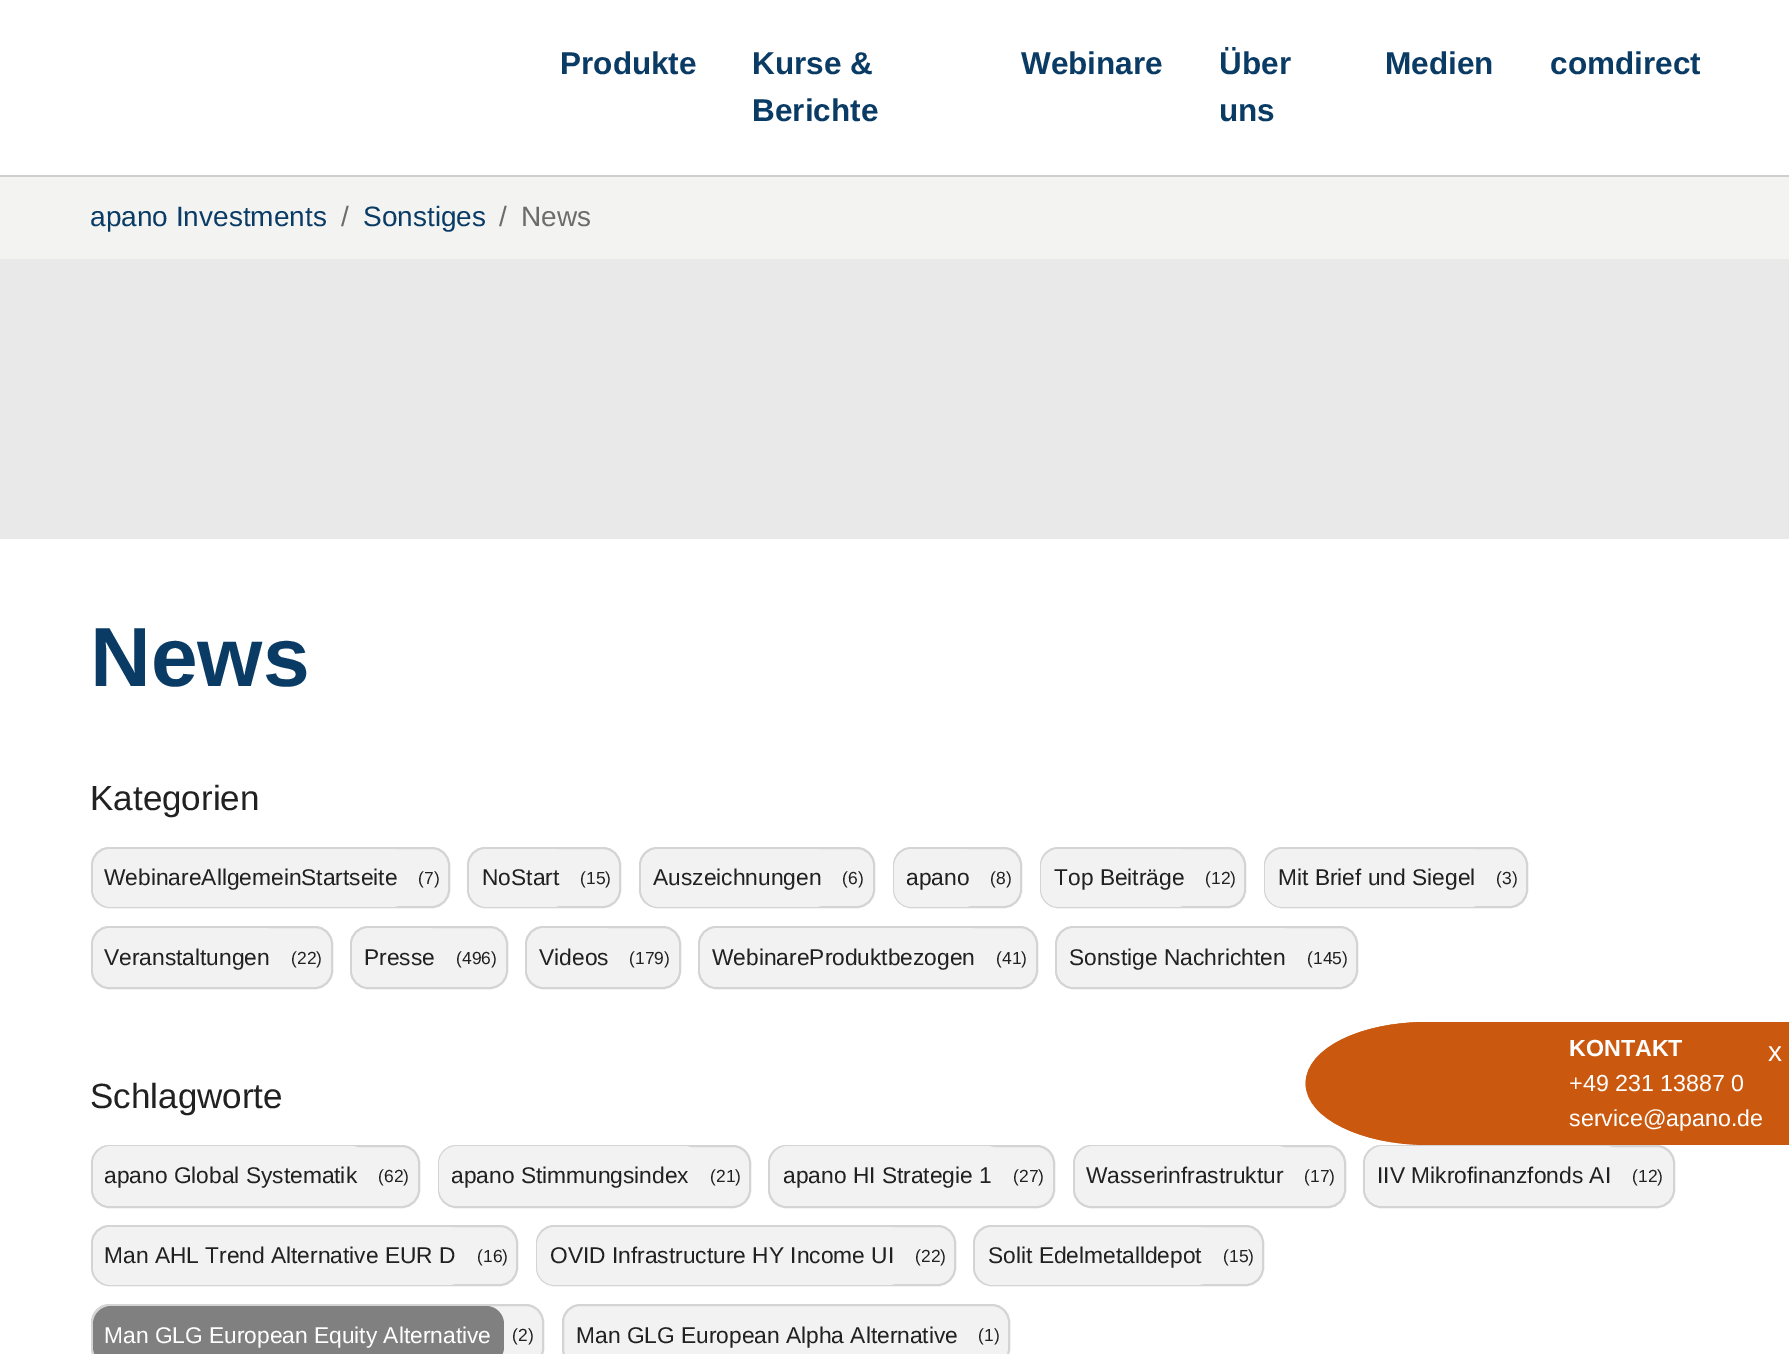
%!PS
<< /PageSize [1789 1354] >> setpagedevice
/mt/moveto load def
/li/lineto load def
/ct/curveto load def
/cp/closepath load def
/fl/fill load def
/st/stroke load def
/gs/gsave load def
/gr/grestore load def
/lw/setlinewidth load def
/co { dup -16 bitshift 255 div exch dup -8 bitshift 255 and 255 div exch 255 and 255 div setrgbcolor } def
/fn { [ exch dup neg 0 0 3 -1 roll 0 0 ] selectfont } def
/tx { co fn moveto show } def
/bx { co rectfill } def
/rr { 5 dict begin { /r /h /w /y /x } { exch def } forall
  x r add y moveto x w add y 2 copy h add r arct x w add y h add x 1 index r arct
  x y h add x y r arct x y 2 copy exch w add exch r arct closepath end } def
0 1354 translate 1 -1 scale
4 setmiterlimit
0 0 1789 1354 16#FFFFFF bx
0 175 1789 2 16#CFCFCE bx
0 177 1789 82 16#F3F3F2 bx
0 259 1789 280 16#E9E9E9 bx
16#F2F2F2 co
92 848 357 59 17 rr gs fl gr
16#D5D4D4 co
2 lw
st
16#F2F2F2 co
93 849 317 58 18 rr fl
468 848 152 59 17 rr gs fl gr
16#D5D4D4 co
st
16#F2F2F2 co
469 849 102 58 18 rr fl
640 848 234 59 17 rr gs fl gr
16#D5D4D4 co
st
16#F2F2F2 co
641 849 192 58 18 rr fl
894 848 127 59 17 rr gs fl gr
16#D5D4D4 co
st
16#F2F2F2 co
894 849 88 58 18 rr fl
1041 848 204 59 17 rr gs fl gr
16#D5D4D4 co
st
16#F2F2F2 co
1041 849 154 58 18 rr fl
1265 848 262 59 17 rr gs fl gr
16#D5D4D4 co
st
16#F2F2F2 co
1265 849 223 58 18 rr fl
92 927 240 61 17 rr gs fl gr
16#D5D4D4 co
st
16#F2F2F2 co
93 928 189 59 18 rr fl
351 927 156 61 17 rr gs fl gr
16#D5D4D4 co
st
16#F2F2F2 co
352 928 94 59 18 rr fl
526 927 154 61 17 rr gs fl gr
16#D5D4D4 co
st
16#F2F2F2 co
527 928 94 59 18 rr fl
699 927 338 61 17 rr gs fl gr
16#D5D4D4 co
st
16#F2F2F2 co
700 928 287 59 18 rr fl
1056 927 301 61 17 rr gs fl gr
16#D5D4D4 co
st
16#F2F2F2 co
1057 928 242 59 18 rr fl
92 1146 327 61 17 rr gs fl gr
16#D5D4D4 co
st
16#F2F2F2 co
93 1146 276 60 18 rr fl
439 1146 311 61 17 rr gs fl gr
16#D5D4D4 co
st
16#F2F2F2 co
439 1146 263 60 18 rr fl
769 1146 285 61 17 rr gs fl gr
16#D5D4D4 co
st
16#F2F2F2 co
770 1146 235 60 18 rr fl
1074 1146 271 61 17 rr gs fl gr
16#D5D4D4 co
st
16#F2F2F2 co
1075 1146 220 60 18 rr fl
1364 1146 310 61 17 rr gs fl gr
16#D5D4D4 co
st
16#F2F2F2 co
1365 1146 259 60 18 rr fl
92 1226 425 59 17 rr gs fl gr
16#D5D4D4 co
st
16#F2F2F2 co
93 1227 374 58 18 rr fl
537 1226 418 59 17 rr gs fl gr
16#D5D4D4 co
st
16#F2F2F2 co
537 1227 370 58 18 rr fl
974 1226 289 59 17 rr gs fl gr
16#D5D4D4 co
st
16#F2F2F2 co
975 1227 240 58 18 rr fl
92 1305 451 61 17 rr gs fl gr
16#D5D4D4 co
st
16#808080 co
93 1306 411 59 18 rr fl
16#F2F2F2 co
563 1305 446 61 17 rr gs fl gr
16#D5D4D4 co
st
16#CA590F co
1427 1022 mt 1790 1022 li 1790 1145 li 1427 1145 li 1360 1145 1306 1117 1306 1083 ct 1306 1049 1360 1022 1427 1022 ct cp fl
8.8 lw
1426.5 1026.5 mt 1786 1026.5 li 1786 1140 li 1426.5 1140 li 1362 1140 1310 1114.5 1310 1083.5 ct 1310 1052 1362 1026.5 1426.5 1026.5 ct cp st
(Produkte) 560 74 /LiberationSans-Bold 31.5 16#093B65 tx
(Kurse &) 752 74 /LiberationSans-Bold 31.5 16#093B65 tx
(Berichte) 752 121 /LiberationSans-Bold 31.5 16#093B65 tx
(Webinare) 1021 74 /LiberationSans-Bold 31.5 16#093B65 tx
(Über) 1219 74 /LiberationSans-Bold 31.5 16#093B65 tx
(uns) 1219 121 /LiberationSans-Bold 31.5 16#093B65 tx
(Medien) 1385 74 /LiberationSans-Bold 31.5 16#093B65 tx
(comdirect) 1550 74 /LiberationSans-Bold 31.5 16#093B65 tx
(apano Investments) 90 226 /LiberationSans-Regular 28 16#093B65 tx
(/) 341 226 /LiberationSans-Regular 28 16#6C6C6C tx
(Sonstiges) 363 226 /LiberationSans-Regular 28 16#093B65 tx
(/) 499 226 /LiberationSans-Regular 28 16#6C6C6C tx
(News) 521 226 /LiberationSans-Regular 28 16#6C6C6C tx
(News) 90 686 /LiberationSans-Bold 84 16#093B65 tx
(Kategorien) 90 810 /LiberationSans-Regular 35 16#212121 tx
(WebinareAllgemeinStartseite) 104 885 /LiberationSans-Regular 22.75 16#212121 tx
(\(7\)) 418 884 /LiberationSans-Regular 17.5 16#212121 tx
(NoStart) 482 885 /LiberationSans-Regular 22.75 16#212121 tx
(\(15\)) 580 884 /LiberationSans-Regular 17.5 16#212121 tx
(Auszeichnungen) 653 885 /LiberationSans-Regular 22.75 16#212121 tx
(\(6\)) 842 884 /LiberationSans-Regular 17.5 16#212121 tx
(apano) 906 885 /LiberationSans-Regular 22.75 16#212121 tx
(\(8\)) 990 884 /LiberationSans-Regular 17.5 16#212121 tx
(Top Beiträge) 1054 885 /LiberationSans-Regular 22.75 16#212121 tx
(\(12\)) 1205 884 /LiberationSans-Regular 17.5 16#212121 tx
(Mit Brief und Siegel) 1278 885 /LiberationSans-Regular 22.75 16#212121 tx
(\(3\)) 1496 884 /LiberationSans-Regular 17.5 16#212121 tx
(Veranstaltungen) 104 965 /LiberationSans-Regular 22.75 16#212121 tx
(\(22\)) 291 964 /LiberationSans-Regular 17.5 16#212121 tx
(Presse) 364 965 /LiberationSans-Regular 22.75 16#212121 tx
(\(496\)) 456 964 /LiberationSans-Regular 17.5 16#212121 tx
(Videos) 539 965 /LiberationSans-Regular 22.75 16#212121 tx
(\(179\)) 629 964 /LiberationSans-Regular 17.5 16#212121 tx
(WebinareProduktbezogen) 712 965 /LiberationSans-Regular 22.75 16#212121 tx
(\(41\)) 996 964 /LiberationSans-Regular 17.5 16#212121 tx
(Sonstige Nachrichten) 1069 965 /LiberationSans-Regular 22.75 16#212121 tx
(\(145\)) 1307 964 /LiberationSans-Regular 17.5 16#212121 tx
(Schlagworte) 90 1108 /LiberationSans-Regular 35 16#212121 tx
(apano Global Systematik) 104 1183 /LiberationSans-Regular 22.75 16#212121 tx
(\(62\)) 378 1182 /LiberationSans-Regular 17.5 16#212121 tx
(apano Stimmungsindex) 451 1183 /LiberationSans-Regular 22.75 16#212121 tx
(\(21\)) 710 1182 /LiberationSans-Regular 17.5 16#212121 tx
(apano HI Strategie 1) 783 1183 /LiberationSans-Regular 22.75 16#212121 tx
(\(27\)) 1013 1182 /LiberationSans-Regular 17.5 16#212121 tx
(Wasserinfrastruktur) 1086 1183 /LiberationSans-Regular 22.75 16#212121 tx
(\(17\)) 1304 1182 /LiberationSans-Regular 17.5 16#212121 tx
(IIV Mikrofinanzfonds AI) 1377 1183 /LiberationSans-Regular 22.75 16#212121 tx
(\(12\)) 1632 1182 /LiberationSans-Regular 17.5 16#212121 tx
(Man AHL Trend Alternative EUR D) 104 1263 /LiberationSans-Regular 22.75 16#212121 tx
(\(16\)) 477 1262 /LiberationSans-Regular 17.5 16#212121 tx
(OVID Infrastructure HY Income UI) 550 1263 /LiberationSans-Regular 22.75 16#212121 tx
(\(22\)) 915 1262 /LiberationSans-Regular 17.5 16#212121 tx
(Solit Edelmetalldepot) 988 1263 /LiberationSans-Regular 22.75 16#212121 tx
(\(15\)) 1223 1262 /LiberationSans-Regular 17.5 16#212121 tx
(Man GLG European Equity Alternative) 104 1343 /LiberationSans-Regular 22.75 16#FFFFFF tx
(\(2\)) 512 1341 /LiberationSans-Regular 17.5 16#212121 tx
(Man GLG European Alpha Alternative) 576 1343 /LiberationSans-Regular 22.75 16#212121 tx
(\(1\)) 978 1341 /LiberationSans-Regular 17.5 16#212121 tx
(KONTAKT) 1569 1056 /LiberationSans-Bold 23.25 16#FFFFFF tx
(+49 231 13887 0) 1569 1091 /LiberationSans-Regular 23.25 16#FFFFFF tx
(service@apano.de) 1569 1126 /LiberationSans-Regular 23.25 16#FFFFFF tx
(x) 1768 1061 /LiberationSans-Regular 28 16#FFFFFF tx
showpage
